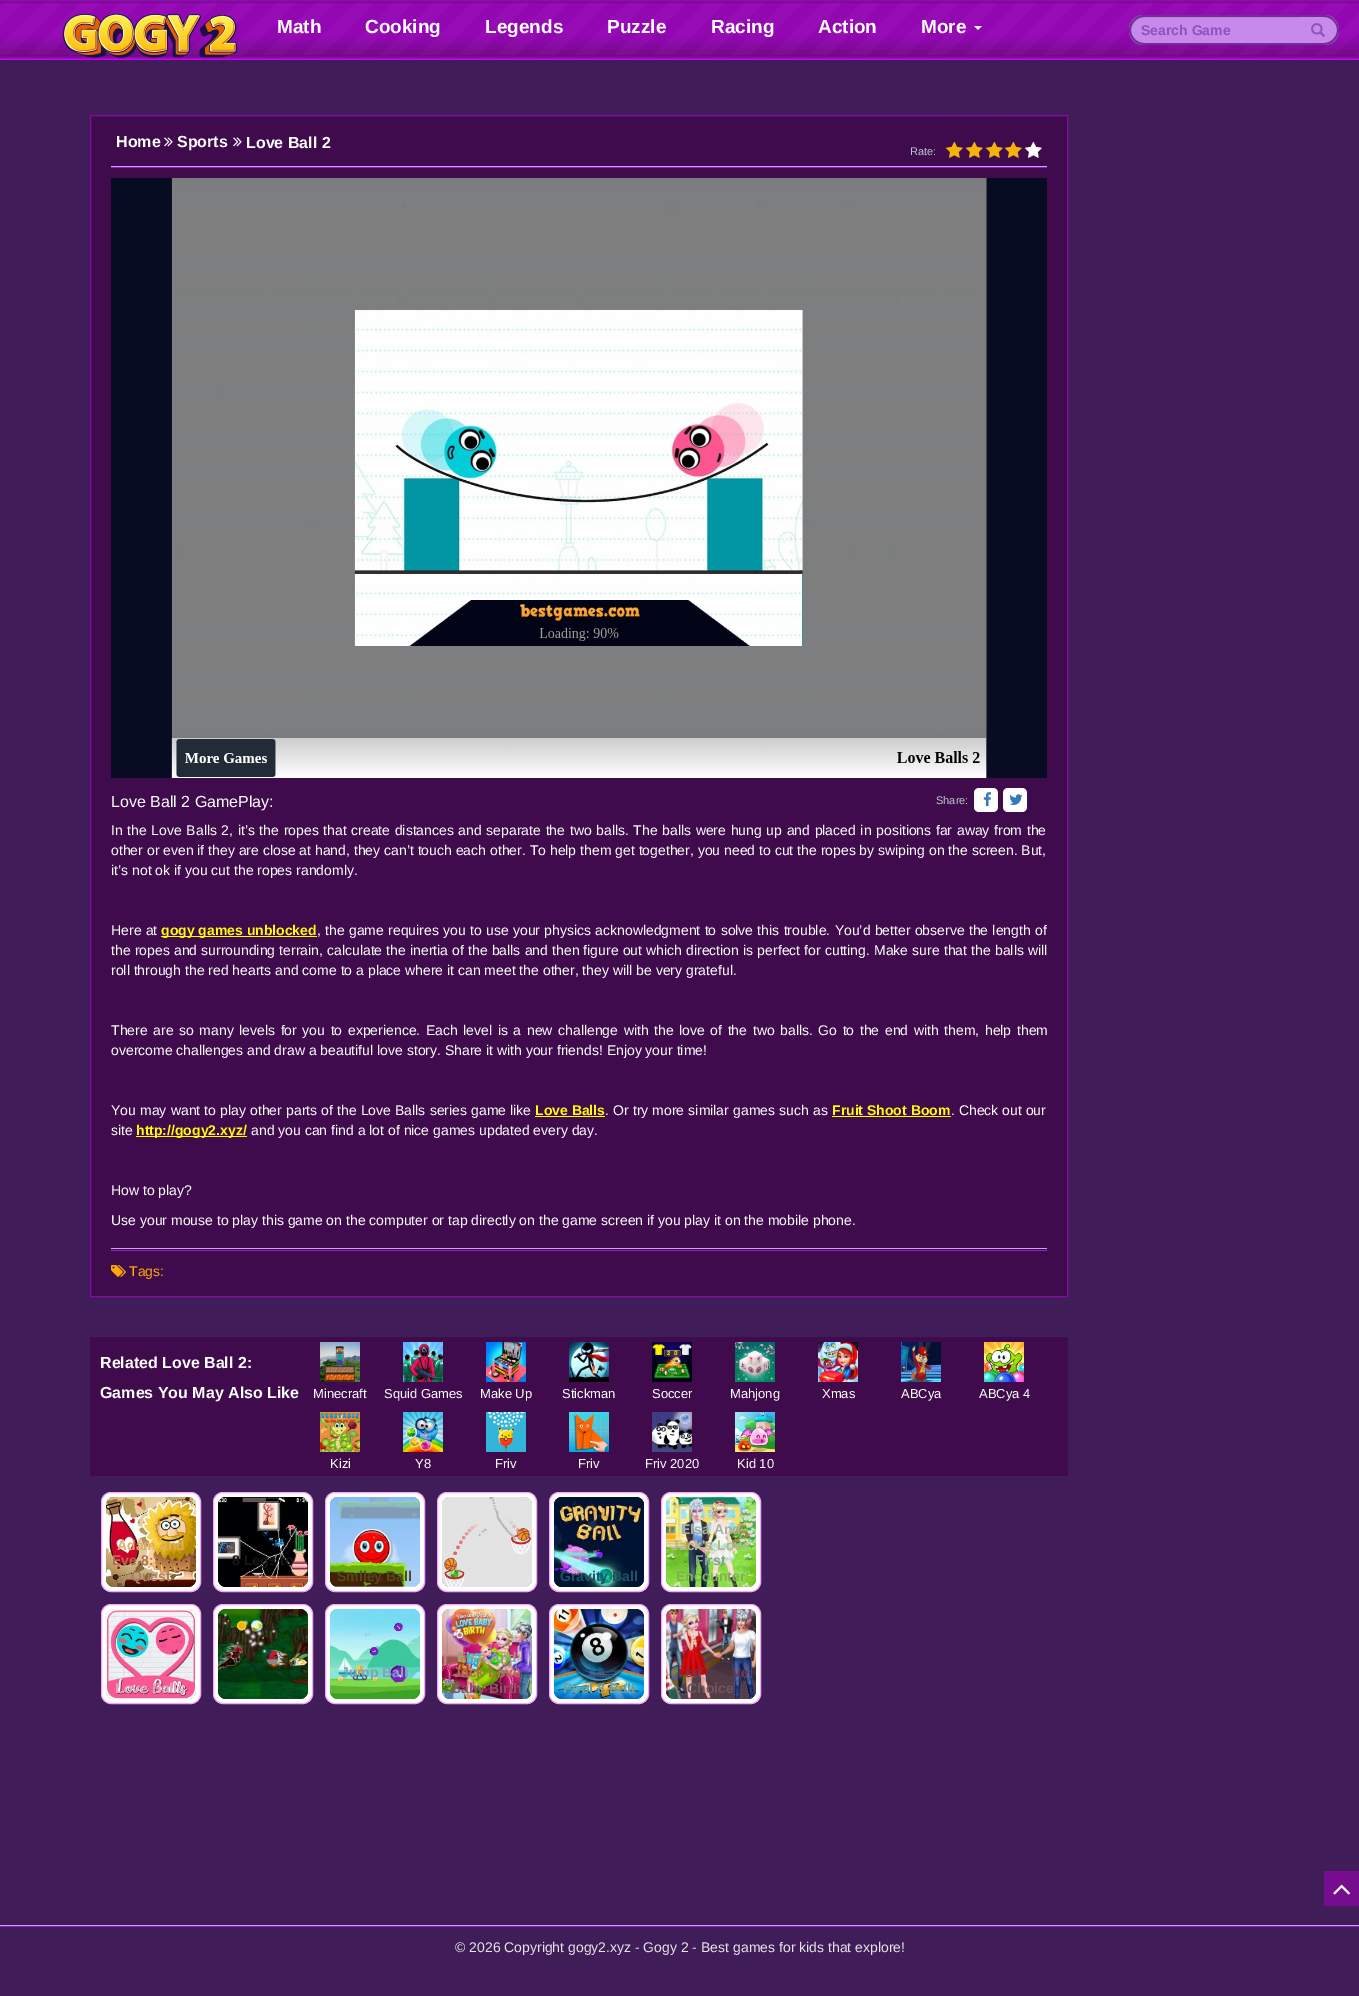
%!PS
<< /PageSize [1359 1996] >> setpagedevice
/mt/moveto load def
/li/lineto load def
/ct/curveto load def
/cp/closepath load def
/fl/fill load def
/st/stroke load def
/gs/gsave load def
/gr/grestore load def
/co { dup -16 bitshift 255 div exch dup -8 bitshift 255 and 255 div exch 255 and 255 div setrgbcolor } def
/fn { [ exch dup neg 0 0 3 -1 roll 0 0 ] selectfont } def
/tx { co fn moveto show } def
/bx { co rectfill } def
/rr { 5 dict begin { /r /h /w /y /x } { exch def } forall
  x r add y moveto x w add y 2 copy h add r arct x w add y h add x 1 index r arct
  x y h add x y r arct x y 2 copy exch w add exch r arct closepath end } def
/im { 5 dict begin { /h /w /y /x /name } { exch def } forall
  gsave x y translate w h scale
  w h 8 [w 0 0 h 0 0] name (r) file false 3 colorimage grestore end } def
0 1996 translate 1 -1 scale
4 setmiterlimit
0 0 1359 1996 16#401D58 bx
(media/1.raw) 0 0 1359 60 im
(media/2.raw) 62 13 175 45 im
16#FFFFFF co
974 26 mt 982 26 li 978 30 li cp fl
16#C789EC co
1144 15 mt 1300 15 li 1300 45 li 1144 45 li 1135.5 45 1129 38.5 1129 30 ct 1129 21.5 1135.5 15 1144 15 ct cp fl
16#B87FDA co
1144 18 mt 1300 18 li 1300 17 li 1170 17 li 1161 17 1130 11 1131 31 ct 1131 24 1137 18 1144 18 ct cp fl
16#6D3191 co
1144 15 mt 1300 15 li 1300 45 li 1144 45 li 1136 45 1129 38 1129 30 ct 1129 22 1136 15 1144 15 ct cp 1144 17 mt 1300 17 li 1300 43 li 1144 43 li 1137 43 1131 37 1131 30 ct 1131 23 1137 17 1144 17 ct cp eofill
16#C789EC co
1299 15 mt 1324 15 li 1332.5 15 1339 21.5 1339 30 ct 1339 38.5 1332.5 45 1324 45 ct 1299 45 li cp fl
16#6D3191 co
1299 15 mt 1324 15 li 1332 15 1339 22 1339 30 ct 1339 38 1332 45 1324 45 ct 1299 45 li cp 1299 17 mt 1324 17 li 1331 17 1337 23 1337 30 ct 1337 37 1331 43 1324 43 ct 1299 43 li cp eofill
(media/3.raw) 1311 23 14 14 im
16#3F0B4D co
90.5 115.5 mt 1067.5 115.5 li 1067.5 1296.5 li 90.5 1296.5 li cp gs fl gr
16#850CA1 co
st
111 167 936 1 16#8023D5 bx
(media/4.raw) 164 137 9 10 im
(media/4.raw) 233 137 9 10 im
(media/5.raw) 946 141 17 17 im
(media/5.raw) 966 141 17 17 im
(media/5.raw) 986 141 17 17 im
(media/5.raw) 1005 141 17 17 im
(media/6.raw) 1025 141 17 17 im
111 166 936 1 16#D79BF4 bx
(media/7.raw) 111 178 936 600 im
16#FFFFFF co
974 788 24 24 5 rr fl
(media/8.raw) 983 792 9 15 im
1003 788 24 24 5 rr fl
(media/9.raw) 1009 794 14 11 im
161 936 156 1 16#FDFE03 bx
535 1116 70 1 16#FDFE03 bx
832 1116 119 1 16#FDFE03 bx
136 1136 111 1 16#FDFE03 bx
111 1250 936 1 16#8023D5 bx
111 1248 936 1 16#D79BF4 bx
(media/10.raw) 111 1265 15 12 im
90 1337 978 139 16#3F0B4D bx
(media/11.raw) 320 1342 40 40 im
(media/12.raw) 403 1342 40 40 im
(media/13.raw) 486 1342 40 40 im
(media/14.raw) 569 1342 40 40 im
(media/15.raw) 652 1342 40 40 im
(media/16.raw) 735 1342 40 40 im
(media/17.raw) 818 1342 40 40 im
(media/18.raw) 901 1342 40 40 im
(media/19.raw) 984 1342 40 40 im
(media/20.raw) 320 1412 40 40 im
(media/21.raw) 403 1412 40 40 im
(media/22.raw) 486 1412 40 40 im
(media/23.raw) 569 1412 40 40 im
(media/24.raw) 652 1412 40 40 im
(media/25.raw) 735 1412 40 40 im
16#FFFFFF co
101.5 1492.5 99 99 9.5 rr gs fl gr
16#F3A5FF co
st
(media/26.raw) 106 1497 90 90 im
(media/27.raw) 106 1497 90 90 im
16#FFFFFF co
213.5 1492.5 99 99 9.5 rr gs fl gr
16#F3A5FF co
st
(media/28.raw) 218 1497 90 90 im
(media/29.raw) 218 1497 90 90 im
16#FFFFFF co
437.5 1492.5 99 99 9.5 rr gs fl gr
16#F3A5FF co
st
(media/30.raw) 442 1497 90 90 im
(media/31.raw) 442 1497 90 90 im
16#FFFFFF co
661.5 1492.5 99 99 9.5 rr gs fl gr
16#F3A5FF co
st
(media/32.raw) 666 1497 90 90 im
(media/33.raw) 666 1497 90 90 im
16#FFFFFF co
325.5 1492.5 99 99 9.5 rr gs fl gr
16#F3A5FF co
st
(media/34.raw) 330 1497 90 90 im
(media/35.raw) 330 1497 90 90 im
16#FFFFFF co
549.5 1492.5 99 99 9.5 rr gs fl gr
16#F3A5FF co
st
(media/36.raw) 554 1497 90 90 im
(media/37.raw) 554 1497 90 90 im
16#FFFFFF co
101.5 1604.5 99 99 9.5 rr gs fl gr
16#F3A5FF co
st
(media/38.raw) 106 1609 90 90 im
(media/39.raw) 106 1609 90 90 im
16#FFFFFF co
213.5 1604.5 99 99 9.5 rr gs fl gr
16#F3A5FF co
st
(media/40.raw) 218 1609 90 90 im
(media/41.raw) 218 1609 90 90 im
16#FFFFFF co
325.5 1604.5 99 99 9.5 rr gs fl gr
16#F3A5FF co
st
(media/42.raw) 330 1609 90 90 im
(media/43.raw) 330 1609 90 90 im
16#FFFFFF co
437.5 1604.5 99 99 9.5 rr gs fl gr
16#F3A5FF co
st
(media/44.raw) 442 1609 90 90 im
(media/45.raw) 442 1609 90 90 im
16#FFFFFF co
549.5 1604.5 99 99 9.5 rr gs fl gr
16#F3A5FF co
st
(media/46.raw) 554 1609 90 90 im
(media/47.raw) 554 1609 90 90 im
16#FFFFFF co
661.5 1604.5 99 99 9.5 rr gs fl gr
16#F3A5FF co
st
(media/48.raw) 666 1609 90 90 im
(media/49.raw) 666 1609 90 90 im
1324 1871 35 35 16#750D8E bx
(media/50.raw) 1333 1884 17 11 im
0 1926 1359 1 16#8023D5 bx
0 1925 1359 1 16#D79BF4 bx
(Math) 277 33 /LiberationSans-Bold 19 16#FFFFFF tx
(Cooking) 365 33 /LiberationSans-Bold 19 16#FFFFFF tx
(Legends) 485 33 /LiberationSans-Bold 19 16#FFFFFF tx
(Puzzle) 607 33 /LiberationSans-Bold 19 16#FFFFFF tx
(Racing) 711 33 /LiberationSans-Bold 19 16#FFFFFF tx
(Action) 818 33 /LiberationSans-Bold 19 16#FFFFFF tx
(More) 921 33 /LiberationSans-Bold 19 16#FFFFFF tx
(Search Game) 1141 35 /LiberationSans-Bold 14 16#9350BA tx
(Home) 116 147 /LiberationSans-Bold 16 16#FFFFFF tx
(Sports) 177 147 /LiberationSans-Bold 16 16#FFFFFF tx
(Love Ball 2) 246 148 /LiberationSans-Bold 16 16#FFFFFF tx
(Rate:) 910 155 /LiberationSans-Regular 11 16#BEC6CE tx
(Love Ball 2 GamePlay:) 111 807 /LiberationSans-Regular 16 16#FFFFFF tx
(Share:) 936 804 /LiberationSans-Regular 11 16#BEC6CE tx
/LiberationSans-Regular 14 fn
16#FFFFFF co
111 835 mt .75 0 32 (In the Love Balls 2, it’s the ropes that create distances and separate the two balls. The balls were hung up and placed in positions far away from the) widthshow
(other or even if they are close at hand, they can’t touch each other. To help them get together, you need to cut the ropes by swiping on the screen. But,) 111 855 /LiberationSans-Regular 14 16#FFFFFF tx
(it’s not ok if you cut the ropes randomly.) 111 875 /LiberationSans-Regular 14 16#FFFFFF tx
111 935 mt .4 0 32 (Here at) widthshow
(gogy games unblocked) 161 935 /LiberationSans-Bold 14 16#FDFE03 tx
/LiberationSans-Regular 14 fn
16#FFFFFF co
317 935 mt .4 0 32 (, the game requires you to use your physics acknowledgment to solve this trouble. You’d better observe the length of) widthshow
111 955 mt .25 0 32 (the ropes and surrounding terrain, calculate the inertia of the balls and then figure out which direction is perfect for cutting. Make sure that the balls will) widthshow
(roll through the red hearts and come to a place where it can meet the other, they will be very grateful.) 111 975 /LiberationSans-Regular 14 16#FFFFFF tx
111 1035 mt 1.7 0 32 (There are so many levels for you to experience. Each level is a new challenge with the love of the two balls. Go to the end with them, help them) widthshow
(overcome challenges and draw a beautiful love story. Share it with your friends! Enjoy your time!) 111 1055 /LiberationSans-Regular 14 16#FFFFFF tx
111 1115 mt .25 0 32 (You may want to play other parts of the Love Balls series game like) widthshow
(Love Balls) 535 1115 /LiberationSans-Bold 14 16#FDFE03 tx
/LiberationSans-Regular 14 fn
16#FFFFFF co
605 1115 mt .25 0 32 (. Or try more similar games such as) widthshow
(Fruit Shoot Boom) 832 1115 /LiberationSans-Bold 14 16#FDFE03 tx
(. Check out our) 951 1115 /LiberationSans-Regular 14 16#FFFFFF tx
(site) 111 1135 /LiberationSans-Regular 14 16#FFFFFF tx
(http://gogy2.xyz/) 136 1135 /LiberationSans-Bold 14 16#FDFE03 tx
(and you can find a lot of nice games updated every day.) 251 1135 /LiberationSans-Regular 14 16#FFFFFF tx
(How to play?) 111 1195 /LiberationSans-Regular 14 16#FFFFFF tx
(Use your mouse to play this game on the computer or tap directly on the game screen if you play it on the mobile phone.) 111 1225 /LiberationSans-Regular 14 16#FFFFFF tx
(Tags:) 129 1276 /LiberationSans-Regular 14 16#FFAA00 tx
(Related Love Ball 2:) 100 1368 /LiberationSans-Bold 16 16#FFFFFF tx
(Games You May Also Like) 100 1398 /LiberationSans-Bold 16 16#FFFFFF tx
(Minecraft) 313 1398 /LiberationSans-Regular 13 16#FFFFFF tx
(Squid Games) 384 1398 /LiberationSans-Regular 13 16#FFFFFF tx
(Make Up) 480 1398 /LiberationSans-Regular 13 16#FFFFFF tx
(Stickman) 562 1398 /LiberationSans-Regular 13 16#FFFFFF tx
(Soccer) 652 1398 /LiberationSans-Regular 13 16#FFFFFF tx
(Mahjong) 730 1398 /LiberationSans-Regular 13 16#FFFFFF tx
(Xmas) 822 1398 /LiberationSans-Regular 13 16#FFFFFF tx
(ABCya) 901 1398 /LiberationSans-Regular 13 16#FFFFFF tx
(ABCya 4) 979 1398 /LiberationSans-Regular 13 16#FFFFFF tx
(Kizi) 330 1468 /LiberationSans-Regular 13 16#FFFFFF tx
(Y8) 415 1468 /LiberationSans-Regular 13 16#FFFFFF tx
(Friv) 495 1468 /LiberationSans-Regular 13 16#FFFFFF tx
(Friv) 578 1468 /LiberationSans-Regular 13 16#FFFFFF tx
(Friv 2020) 645 1468 /LiberationSans-Regular 13 16#FFFFFF tx
(Kid 10) 737 1468 /LiberationSans-Regular 13 16#FFFFFF tx
(Adam and) 117 1550 /LiberationSans-Bold 14 16#DEAD67 tx
(Eve 8:) 112 1565 /LiberationSans-Bold 14 16#B86E4F tx
(Quest) 131 1581 /LiberationSans-Bold 14 16#AB8261 tx
(8 Legs to) 232 1565 /LiberationSans-Bold 14 16#181718 tx
(Elsa And) 681 1534 /LiberationSans-Bold 14 16#A4B0A0 tx
(Jack's Love) 671 1550 /LiberationSans-Bold 14 16#ADBC8B tx
(First) 695 1565 /LiberationSans-Bold 14 16#86A289 tx
(Encounter) 676 1581 /LiberationSans-Bold 14 16#7EB453 tx
(Smiley Ball) 337 1581 /LiberationSans-Bold 14 16#52491F tx
(Gravity Ball) 560 1581 /LiberationSans-Bold 14 16#215364 tx
(Love Balls) 115 1693 /LiberationSans-Bold 14 16#DDA3BA tx
(Jump Ball) 341 1677 /LiberationSans-Bold 14 16#7FA3B8 tx
(Elsa And) 457 1662 /LiberationSans-Bold 14 16#959F82 tx
(Jack Love) 453 1677 /LiberationSans-Bold 14 16#A9724E tx
(Baby Birth) 451 1693 /LiberationSans-Bold 14 16#8D5361 tx
(Pool 8 Ball) 563 1693 /LiberationSans-Bold 14 16#6C9F9C tx
(sa') 685 1677 /LiberationSans-Bold 14 16#733947 tx
(ve) 733 1677 /LiberationSans-Bold 14 16#733947 tx
(Choice) 687 1693 /LiberationSans-Bold 14 16#71545D tx
(© 2026 Copyright gogy2.xyz - Gogy 2 - Best games for kids that explore!) 455 1952 /LiberationSans-Regular 14 16#E5E5E5 tx
showpage
